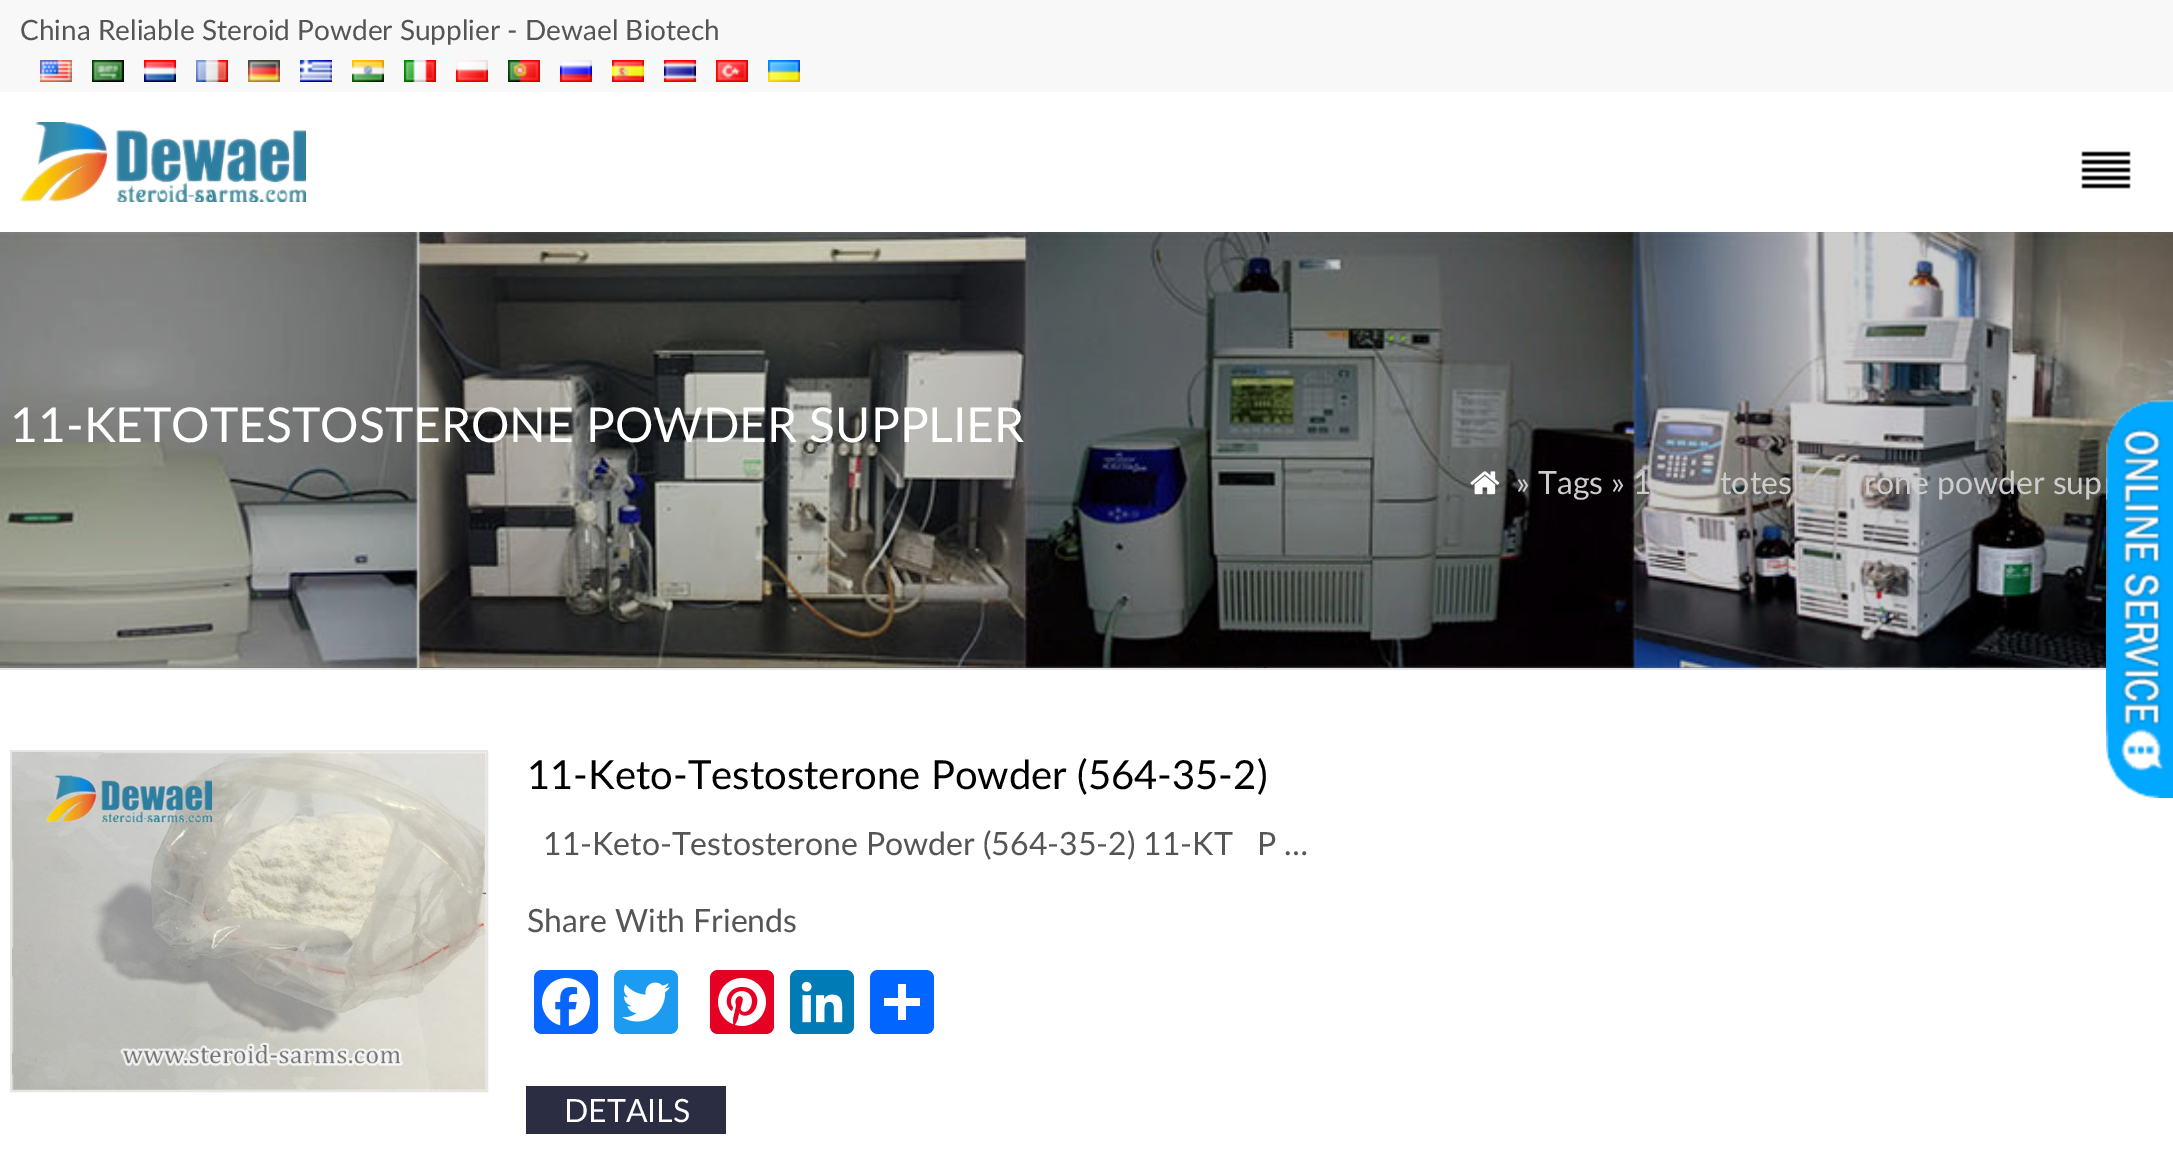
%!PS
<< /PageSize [2173 1169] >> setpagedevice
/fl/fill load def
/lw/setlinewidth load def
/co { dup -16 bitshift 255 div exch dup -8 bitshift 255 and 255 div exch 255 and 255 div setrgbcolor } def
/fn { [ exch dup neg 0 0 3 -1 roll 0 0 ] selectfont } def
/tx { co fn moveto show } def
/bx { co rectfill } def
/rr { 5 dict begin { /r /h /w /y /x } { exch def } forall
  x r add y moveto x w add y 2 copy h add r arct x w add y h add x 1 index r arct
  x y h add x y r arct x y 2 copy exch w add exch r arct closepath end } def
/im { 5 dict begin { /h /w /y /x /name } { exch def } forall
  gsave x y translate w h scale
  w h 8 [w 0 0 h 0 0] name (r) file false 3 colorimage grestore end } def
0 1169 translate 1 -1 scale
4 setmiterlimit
0 0 2173 1169 16#FFFFFF bx
0 0 2173 92 16#F8F8F8 bx
(media/1.raw) 40 60 32 22 im
(media/2.raw) 92 60 32 22 im
(media/3.raw) 144 60 32 22 im
(media/4.raw) 196 60 32 22 im
(media/5.raw) 248 60 32 22 im
(media/6.raw) 300 60 32 22 im
(media/7.raw) 352 60 32 22 im
(media/8.raw) 404 60 32 22 im
(media/9.raw) 456 60 32 22 im
(media/10.raw) 508 60 32 22 im
(media/11.raw) 560 60 32 22 im
(media/12.raw) 612 60 32 22 im
(media/13.raw) 664 60 32 22 im
(media/14.raw) 716 60 32 22 im
(media/15.raw) 768 60 32 22 im
(media/16.raw) 20 122 286 80 im
(media/17.raw) 2081 151 50 38 im
(media/18.raw) 0 232 2173 436 im
0 668 2109 2 16#E5E5E5 bx
(media/19.raw) 1470 471 30 24 im
2 lw
11 751 476 340 rectstroke
(media/20.raw) 12 752 474 338 im
16#0866FF co
534 970 64 64 8 rr fl
(media/21.raw) 542 978 48 48 im
16#1D9BF0 co
614 970 64 64 8 rr fl
(media/22.raw) 622 982 48 40 im
16#E60023 co
710 970 64 64 8 rr fl
(media/23.raw) 718 978 48 48 im
16#007BB5 co
790 970 64 64 8 rr fl
(media/24.raw) 801 981 42 42 im
16#0166FF co
870 970 64 64 8 rr fl
898 984 8 36 16#FFFFFF bx
884 998 36 8 16#FFFFFF bx
526 1086 200 48 16#2B2D42 bx
(media/25.raw) 2106 400 67 398 im
(China Reliable Steroid Powder Supplier - Dewael Biotech) 20 40 /Lato-Regular 28 16#555555 tx
(11-KETOTESTOSTERONE POWDER SUPPLIER) 10 442 /Lato-Regular 48 16#FFFFFF tx
(» Tags » 1) 1516 494 /Lato-Regular 32 16#CCCCCC tx
(totes) 1720 494 /Lato-Regular 32 16#CCCCCC tx
(rone powder sup) 1864 494 /Lato-Regular 32 16#CCCCCC tx
(11-Keto-Testosterone Powder \(564-35-2\)) 527 789 /Lato-Regular 40 16#000000 tx
(11-Keto-Testosterone Powder \(564-35-2\) 11-KT   P …) 543 855 /Lato-Regular 32 16#555555 tx
(Share With Friends) 527 932 /Lato-Regular 32 16#555555 tx
(DETAILS) 564 1122 /Lato-Regular 32 16#FFFFFF tx
showpage
